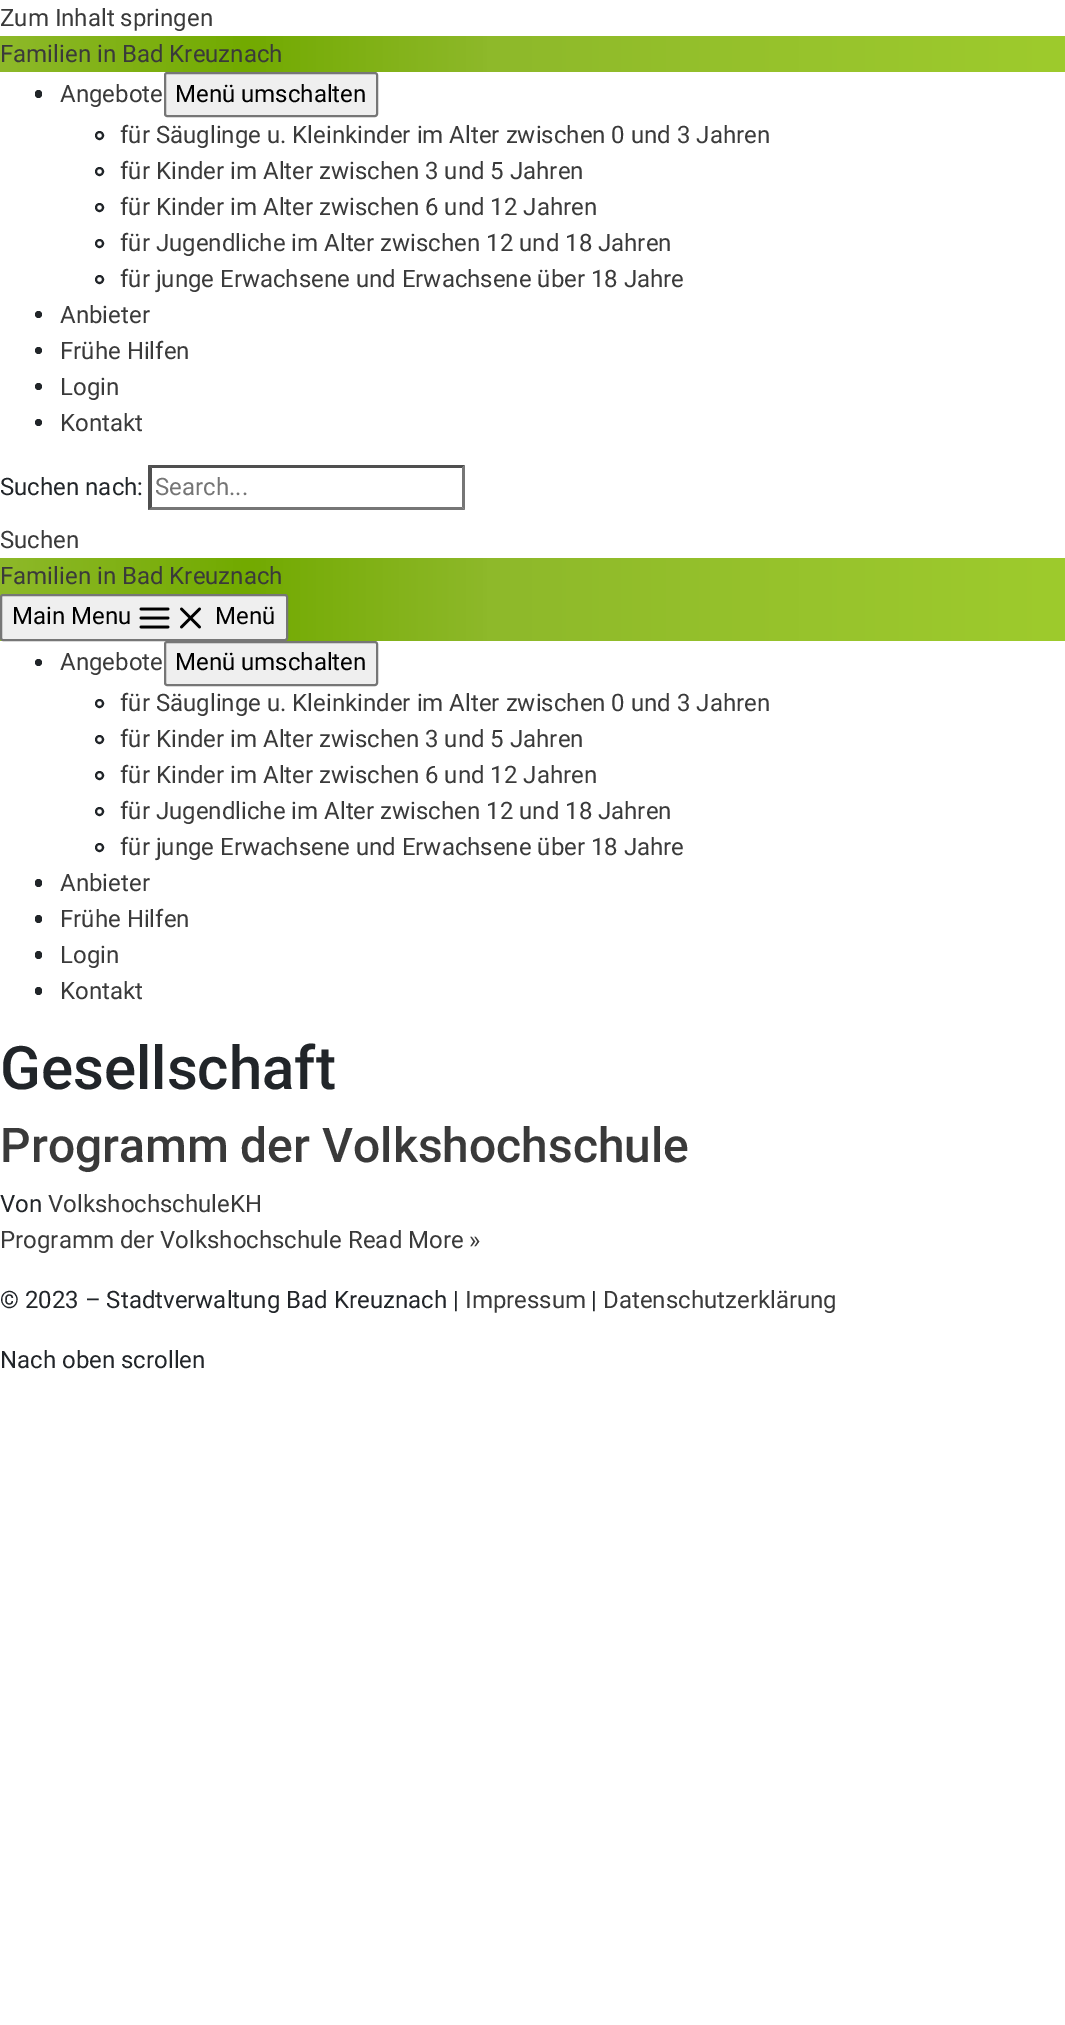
%!PS
<< /PageSize [1065 2025] >> setpagedevice
/mt/moveto load def
/li/lineto load def
/cp/closepath load def
/fl/fill load def
/st/stroke load def
/gs/gsave load def
/gr/grestore load def
/lw/setlinewidth load def
/co { dup -16 bitshift 255 div exch dup -8 bitshift 255 and 255 div exch 255 and 255 div setrgbcolor } def
/fn { [ exch dup neg 0 0 3 -1 roll 0 0 ] selectfont } def
/tx { co fn moveto show } def
/bx { co rectfill } def
/ci { newpath 0 360 arc closepath } def
/rr { 5 dict begin { /r /h /w /y /x } { exch def } forall
  x r add y moveto x w add y 2 copy h add r arct x w add y h add x 1 index r arct
  x y h add x y r arct x y 2 copy exch w add exch r arct closepath end } def
/im { 5 dict begin { /h /w /y /x /name } { exch def } forall
  gsave x y translate w h scale
  w h 8 [w 0 0 h 0 0] name (r) file false 3 colorimage grestore end } def
0 2025 translate 1 -1 scale
4 setmiterlimit
0 0 1065 2025 16#FFFFFF bx
gs 0 36 mt 1065 36 li 1065 72 li 0 72 li cp clip newpath
<< /ShadingType 2 /ColorSpace /DeviceRGB /Coords [0 54 1065 54] /Extend [true true] /Function << /FunctionType 3 /Domain [0 1] /Functions [<< /FunctionType 2 /Domain [0 1] /C0 [.557 .725 .165] /C1 [.447 .667 0] /N 1 >> << /FunctionType 2 /Domain [0 1] /C0 [.447 .667 0] /C1 [.557 .725 .165] /N 1 >> << /FunctionType 2 /Domain [0 1] /C0 [.557 .725 .165] /C1 [.62 .796 .176] /N 1 >>] /Bounds [.23 .46] /Encode [0 1 0 1 0 1] >> >> shfill gr
16#212529 co
35 90 7 8 3.5 rr fl
16#EFEFEF co
165 73 212 43 2 rr gs fl gr
16#767676 co
2 lw
st
16#212529 co
99.5 135.5 3.5 ci st
99.5 171.5 3.5 ci st
99.5 207.5 3.5 ci st
99.5 243.5 3.5 ci st
99.5 279.5 3.5 ci st
38.5 314.5 3.5 ci fl
38.5 350.5 3.5 ci fl
38.5 386.5 3.5 ci fl
38.5 422.5 3.5 ci fl
16#4F4F4F co
148 465 mt 465 465 li 462 468 li 152 468 li cp fl
16#767676 co
465 465 mt 465 510 li 462 507 li 462 468 li cp fl
465 510 mt 148 510 li 152 507 li 462 507 li cp fl
16#4F4F4F co
148 510 mt 148 465 li 152 468 li 152 507 li cp fl
gs 0 558 mt 1065 558 li 1065 641 li 0 641 li cp clip newpath
<< /ShadingType 2 /ColorSpace /DeviceRGB /Coords [0 599 1065 599] /Extend [true true] /Function << /FunctionType 3 /Domain [0 1] /Functions [<< /FunctionType 2 /Domain [0 1] /C0 [.557 .725 .165] /C1 [.447 .667 0] /N 1 >> << /FunctionType 2 /Domain [0 1] /C0 [.447 .667 0] /C1 [.557 .725 .165] /N 1 >> << /FunctionType 2 /Domain [0 1] /C0 [.557 .725 .165] /C1 [.62 .796 .176] /N 1 >>] /Bounds [.23 .46] /Encode [0 1 0 1 0 1] >> >> shfill gr
16#EFEFEF co
1 595 286 45 2 rr gs fl gr
16#767676 co
st
(media/1.raw) 139 607 31 22 im
(media/2.raw) 180 607 21 22 im
16#212529 co
38.5 662.5 3.5 ci fl
16#EFEFEF co
165 642 212 43 2 rr gs fl gr
16#767676 co
st
16#212529 co
99.5 703.5 3.5 ci st
99.5 739.5 3.5 ci st
99.5 775.5 3.5 ci st
99.5 811.5 3.5 ci st
99.5 847.5 3.5 ci st
35 879 7 8 3.5 rr fl
35 915 7 8 3.5 rr fl
35 951 7 8 3.5 rr fl
35 987 7 8 3.5 rr fl
(Zum Inhalt springen) 0 26 /Roboto-Regular 24 16#3A3A3A tx
(Familien in Bad Kreuznach) 0 62 /Roboto-Regular 24 16#3A3A3A tx
(Angebote) 60 102 /Roboto-Regular 24 16#3A3A3A tx
(Menü umschalten) 175 102 /Roboto-Regular 24 16#000000 tx
(für Säuglinge u. Kleinkinder im Alter zwischen 0 und 3 Jahren) 120 143 /Roboto-Regular 24 16#3A3A3A tx
(für Kinder im Alter zwischen 3 und 5 Jahren) 120 179 /Roboto-Regular 24 16#3A3A3A tx
(für Kinder im Alter zwischen 6 und 12 Jahren) 120 215 /Roboto-Regular 24 16#3A3A3A tx
(für Jugendliche im Alter zwischen 12 und 18 Jahren) 120 251 /Roboto-Regular 24 16#3A3A3A tx
(für junge Erwachsene und Erwachsene über 18 Jahre) 120 287 /Roboto-Regular 24 16#3A3A3A tx
(Anbieter) 60 323 /Roboto-Regular 24 16#3A3A3A tx
(Frühe Hilfen) 60 359 /Roboto-Regular 24 16#3A3A3A tx
(Login) 60 395 /Roboto-Regular 24 16#3A3A3A tx
(Kontakt) 60 431 /Roboto-Regular 24 16#3A3A3A tx
(Suchen nach:) 0 495 /Roboto-Regular 24 16#212529 tx
(Search...) 155 495 /Roboto-Regular 24 16#757575 tx
(Suchen) 0 548 /Roboto-Regular 24 16#3A3A3A tx
(Familien in Bad Kreuznach) 0 584 /Roboto-Regular 24 16#3A3A3A tx
(Main Menu) 12 624 /Roboto-Regular 24 16#000000 tx
(Menü) 215 624 /Roboto-Regular 24 16#000000 tx
(Angebote) 60 670 /Roboto-Regular 24 16#3A3A3A tx
(Menü umschalten) 175 670 /Roboto-Regular 24 16#000000 tx
(für Säuglinge u. Kleinkinder im Alter zwischen 0 und 3 Jahren) 120 711 /Roboto-Regular 24 16#3A3A3A tx
(für Kinder im Alter zwischen 3 und 5 Jahren) 120 747 /Roboto-Regular 24 16#3A3A3A tx
(für Kinder im Alter zwischen 6 und 12 Jahren) 120 783 /Roboto-Regular 24 16#3A3A3A tx
(für Jugendliche im Alter zwischen 12 und 18 Jahren) 120 819 /Roboto-Regular 24 16#3A3A3A tx
(für junge Erwachsene und Erwachsene über 18 Jahre) 120 855 /Roboto-Regular 24 16#3A3A3A tx
(Anbieter) 60 891 /Roboto-Regular 24 16#3A3A3A tx
(Frühe Hilfen) 60 927 /Roboto-Regular 24 16#3A3A3A tx
(Login) 60 963 /Roboto-Regular 24 16#3A3A3A tx
(Kontakt) 60 999 /Roboto-Regular 24 16#3A3A3A tx
(Gesellschaft) 0 1089 /Roboto-Medium 60 16#212529 tx
(Programm der Volkshochschule) 0 1162 /Roboto-Medium 48 16#3A3A3A tx
(Von) 0 1212 /Roboto-Regular 24 16#212529 tx
(VolkshochschuleKH) 48 1212 /Roboto-Regular 24 16#3A3A3A tx
(Programm der Volkshochschule Read More ») 0 1248 /Roboto-Regular 24 16#3A3A3A tx
(© 2023 – Stadtverwaltung Bad Kreuznach |) 0 1308 /Roboto-Regular 24 16#212529 tx
(Impressum) 465 1308 /Roboto-Regular 24 16#3A3A3A tx
(|) 591 1308 /Roboto-Regular 24 16#212529 tx
(Datenschutzerklärung) 603 1308 /Roboto-Regular 24 16#3A3A3A tx
(Nach oben scrollen) 0 1368 /Roboto-Regular 24 16#212529 tx
showpage
